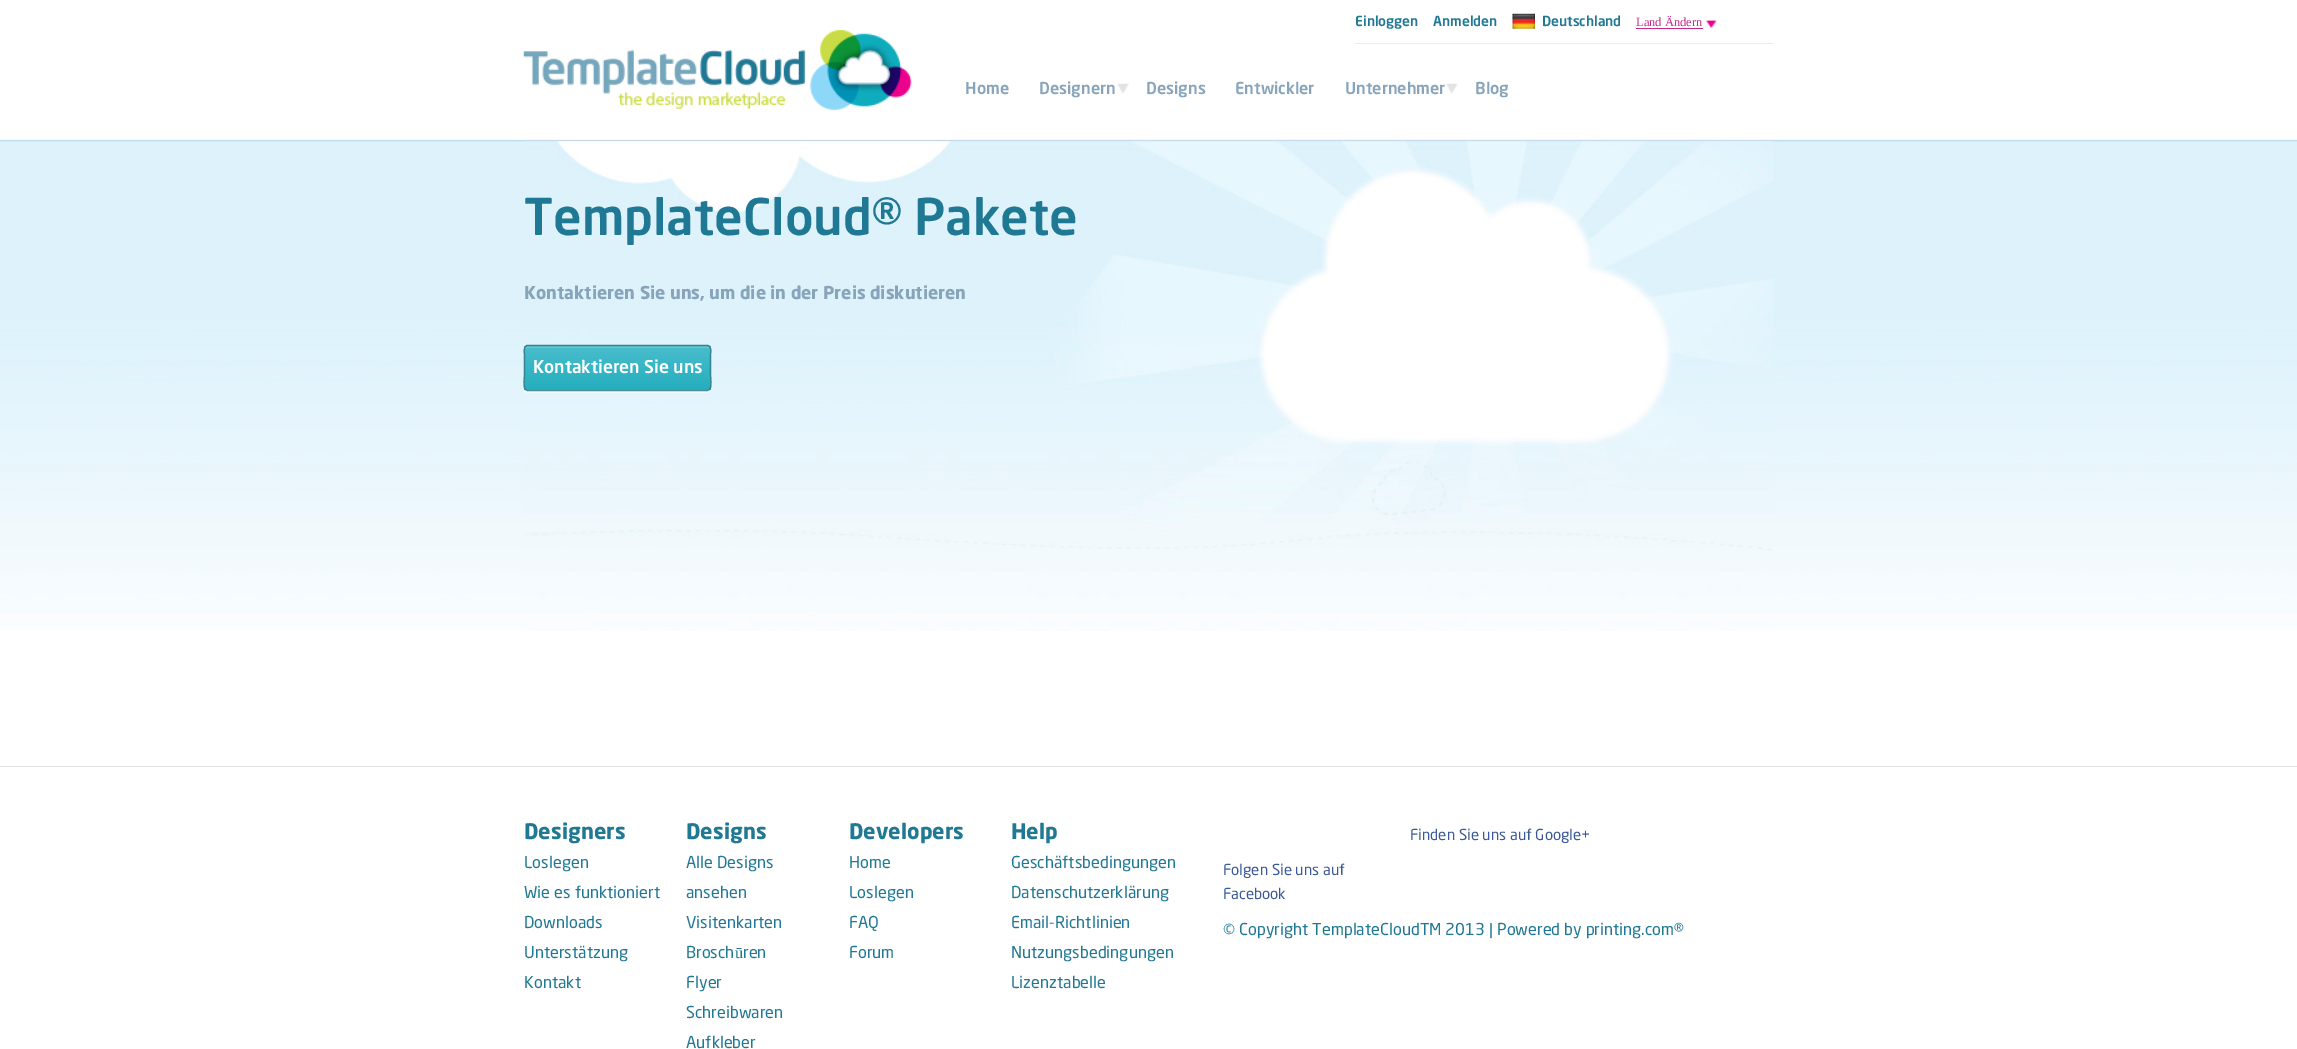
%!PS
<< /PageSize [2297 1049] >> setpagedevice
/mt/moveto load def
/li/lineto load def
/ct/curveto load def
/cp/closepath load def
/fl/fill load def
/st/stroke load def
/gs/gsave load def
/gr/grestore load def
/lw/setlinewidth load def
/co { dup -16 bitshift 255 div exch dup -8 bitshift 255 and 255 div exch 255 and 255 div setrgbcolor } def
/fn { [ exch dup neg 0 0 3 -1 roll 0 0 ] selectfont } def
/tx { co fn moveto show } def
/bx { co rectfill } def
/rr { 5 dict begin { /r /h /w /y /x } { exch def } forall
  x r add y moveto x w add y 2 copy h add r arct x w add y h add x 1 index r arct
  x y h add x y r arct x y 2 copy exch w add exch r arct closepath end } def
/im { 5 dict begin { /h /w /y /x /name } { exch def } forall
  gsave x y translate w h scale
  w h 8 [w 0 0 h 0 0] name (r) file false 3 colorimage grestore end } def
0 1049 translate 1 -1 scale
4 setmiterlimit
0 0 2297 1049 16#FFFFFF bx
(media/1.raw) 0 139 2297 491 im
524 140 1250 1 16#C4D9E9 bx
(media/2.raw) 523 29 389 82 im
1355 43 419 1 16#ECECEC bx
(media/3.raw) 1512 13 23 16 im
1636 28 67 1 16#C7298C bx
(media/4.raw) 1706 20 11 9 im
(media/5.raw) 1117 83 12 11 im
(media/6.raw) 1446 83 12 11 im
(media/7.raw) 524 141 1250 490 im
16#F2FAFE co
524 389 mt 524 391 526 393 528 393 ct 707 393 li 709 393 711 391 711 389 ct 710 390 709 391 708 391 ct 528 391 li 526 391 525 390 524 389 ct cp fl
gs
524 345 187 46 4 rr clip newpath
gs 524 346 mt 711 346 li 711 390 li 524 390 li cp clip newpath
<< /ShadingType 2 /ColorSpace /DeviceRGB /Coords [618 346 618 390] /Extend [true true] /Function << /FunctionType 2 /Domain [0 1] /C0 [.286 .741 .8] /C1 [.145 .682 .745] /N 1 >> >> shfill gr
gr
16#64C6D4 co
528 348 mt 708 348 li 709 348 710 349 710 350 ct 710 348 710 346 708 346 ct 527 346 li 525 346 525 348 525 350 ct 525 349 526 348 528 348 ct cp fl
16#47909A co
1.2 lw
709.5 389.5 mt 707.5 390.5 li 527.5 390.5 li 525.5 389.5 li st
16#33848F co
525.5 389.5 mt 523 387.5 524.5 377 524.5 374.5 ct 524.5 355 li 524.5 353 523 345.5 527.5 345.5 ct 707.5 345.5 li 712 345.5 710.5 353 710.5 355 ct 710.5 374.5 li 710.5 377 712 387.5 709.5 389.5 ct st
0 766 2297 1 16#E3E3E3 bx
(Einloggen) 1355 26 /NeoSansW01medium-Medium 13.75 16#1F7894 tx
(Anmelden) 1433 26 /NeoSansW01medium-Medium 13.75 16#1F7894 tx
(Deutschland) 1542 26 /NeoSansW01medium-Medium 13.75 16#1F7894 tx
(Land Ändern) 1636 26 /LiberationSerif-Regular 12.5 16#C7298C tx
(Home) 965 94 /NeoSansW01medium-Medium 16.25 16#88A4BA tx
(Designern) 1039 94 /NeoSansW01medium-Medium 16.25 16#88A4BA tx
(Designs) 1146 94 /NeoSansW01medium-Medium 16.25 16#88A4BA tx
(Entwickler) 1235 94 /NeoSansW01medium-Medium 16.25 16#88A4BA tx
(Unternehmer) 1345 94 /NeoSansW01medium-Medium 16.25 16#88A4BA tx
(Blog) 1475 94 /NeoSansW01medium-Medium 16.25 16#88A4BA tx
(TemplateCloud® Pakete) 524 235 /NeoSansW01medium-Medium 50 16#1F7894 tx
(Kontaktieren Sie uns, um die in der Preis diskutieren) 524 299 /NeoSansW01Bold-Bold 17.5 16#88A4BA tx
(Kontaktieren Sie uns) 533 373 /NeoSansW01medium-Medium 17.5 16#FFFFFF tx
(Designers) 524 839 /NeoSansW01Bold-Bold 21.25 16#1F7894 tx
(Loslegen) 524 868 /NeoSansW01-Regular 16.25 16#1F7894 tx
(Wie es funktioniert) 524 898 /NeoSansW01-Regular 16.25 16#1F7894 tx
(Downloads) 524 928 /NeoSansW01-Regular 16.25 16#1F7894 tx
(Unterstätzung) 524 958 /NeoSansW01-Regular 16.25 16#1F7894 tx
(Kontakt) 524 988 /NeoSansW01-Regular 16.25 16#1F7894 tx
(Designs) 686 839 /NeoSansW01Bold-Bold 21.25 16#1F7894 tx
(Alle Designs) 686 868 /NeoSansW01-Regular 16.25 16#1F7894 tx
(ansehen) 686 898 /NeoSansW01-Regular 16.25 16#1F7894 tx
(Visitenkarten) 686 928 /NeoSansW01-Regular 16.25 16#1F7894 tx
(Brosch) 686 958 /NeoSansW01-Regular 16.25 16#1F7894 tx
(ū) 735 958 /LiberationSerif-Regular 16.25 16#1F7894 tx
(ren) 743 958 /NeoSansW01-Regular 16.25 16#1F7894 tx
(Flyer) 686 988 /NeoSansW01-Regular 16.25 16#1F7894 tx
(Schreibwaren) 686 1018 /NeoSansW01-Regular 16.25 16#1F7894 tx
(Aufkleber) 686 1048 /NeoSansW01-Regular 16.25 16#1F7894 tx
(Developers) 849 839 /NeoSansW01Bold-Bold 21.25 16#1F7894 tx
(Home) 849 868 /NeoSansW01-Regular 16.25 16#1F7894 tx
(Loslegen) 849 898 /NeoSansW01-Regular 16.25 16#1F7894 tx
(FAQ) 849 928 /NeoSansW01-Regular 16.25 16#1F7894 tx
(Forum) 849 958 /NeoSansW01-Regular 16.25 16#1F7894 tx
(Help) 1011 839 /NeoSansW01Bold-Bold 21.25 16#1F7894 tx
(Geschäftsbedingungen) 1011 868 /NeoSansW01-Regular 16.25 16#1F7894 tx
(Datenschutzerklärung) 1011 898 /NeoSansW01-Regular 16.25 16#1F7894 tx
(Email-Richtlinien) 1011 928 /NeoSansW01-Regular 16.25 16#1F7894 tx
(Nutzungsbedingungen) 1011 958 /NeoSansW01-Regular 16.25 16#1F7894 tx
(Lizenztabelle) 1011 988 /NeoSansW01-Regular 16.25 16#1F7894 tx
(Finden Sie uns auf Google+) 1410 840 /NeoSansW01-Regular 15 16#3B5998 tx
(Folgen Sie uns auf) 1223 875 /NeoSansW01-Regular 15 16#3B5998 tx
(Facebook) 1223 899 /NeoSansW01-Regular 15 16#3B5998 tx
(© Copyright TemplateCloudTM 2013 | Powered by printing.com®) 1223 935 /NeoSansW01-Regular 16.25 16#1F7894 tx
showpage
